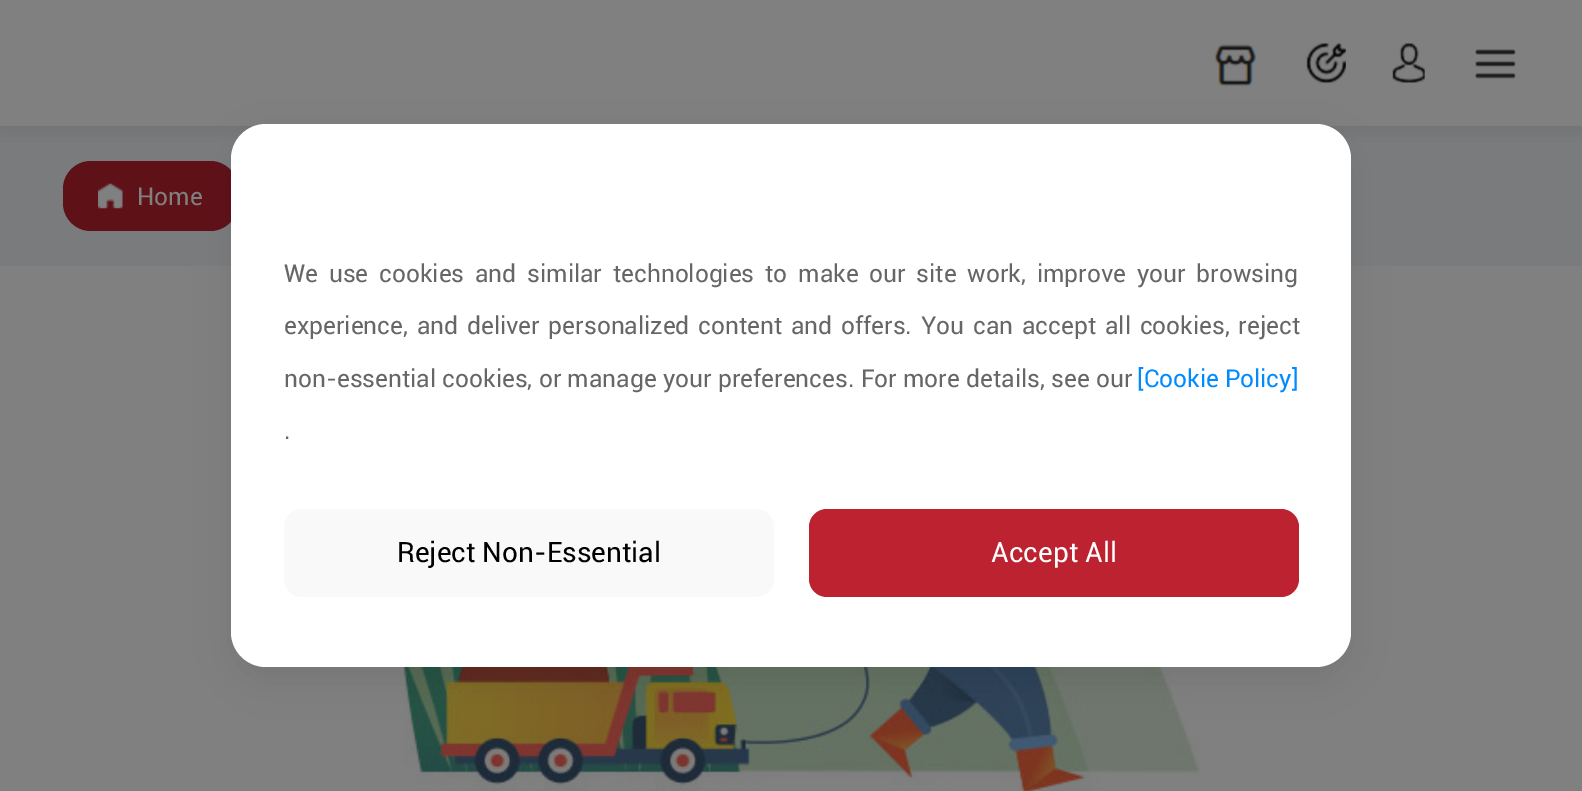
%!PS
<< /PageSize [1582 791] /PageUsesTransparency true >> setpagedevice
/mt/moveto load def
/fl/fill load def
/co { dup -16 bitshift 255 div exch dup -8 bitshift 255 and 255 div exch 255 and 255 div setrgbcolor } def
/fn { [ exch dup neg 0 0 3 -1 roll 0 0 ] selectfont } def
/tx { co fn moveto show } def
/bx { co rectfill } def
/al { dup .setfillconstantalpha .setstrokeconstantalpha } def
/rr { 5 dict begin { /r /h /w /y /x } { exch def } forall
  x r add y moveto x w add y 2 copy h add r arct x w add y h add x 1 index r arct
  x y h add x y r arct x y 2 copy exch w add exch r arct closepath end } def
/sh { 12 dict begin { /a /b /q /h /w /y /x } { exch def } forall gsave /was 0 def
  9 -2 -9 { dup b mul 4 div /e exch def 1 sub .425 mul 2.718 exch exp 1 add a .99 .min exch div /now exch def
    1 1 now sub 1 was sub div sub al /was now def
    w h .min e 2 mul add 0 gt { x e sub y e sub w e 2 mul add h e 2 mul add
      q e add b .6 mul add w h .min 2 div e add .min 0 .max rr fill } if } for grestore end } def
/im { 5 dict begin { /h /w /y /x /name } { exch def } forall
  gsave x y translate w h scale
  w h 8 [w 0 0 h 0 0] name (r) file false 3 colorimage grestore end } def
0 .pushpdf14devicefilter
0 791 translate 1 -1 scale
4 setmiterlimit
0 0 1582 791 16#7A7B7C bx
16#5F1118 co
63 161 175 70 28 rr fl
16#000000 co
0 4 1582 126 0 10.5 .1 sh
0 0 1582 126 16#808080 bx
(media/1.raw) 1213 44 43 43 im
(media/2.raw) 1306 43 40 40 im
(media/3.raw) 1392 43 33 40 im
(media/4.raw) 1475 49 41 30 im
(media/5.raw) 98 183 25 26 im
0 266 1582 525 16#808080 bx
(media/6.raw) 390 667 810 124 im
16#000000 co
231 138 1120 543 35 17.5 .08 sh
16#FFFFFF co
231 124 1120 543 35 rr fl
16#F9F9F9 co
284 509 490 88 18 rr fl
16#BD2230 co
809 509 490 88 18 rr fl
(Home) 137 205 /Roboto-Regular 24.5 16#808080 tx
16#666666 co
284 282 mt 4.75 0 32 (We use cookies and similar technologies to make our site work, improve your browsing) widthshow
284 334 mt 2.75 0 32 (experience, and deliver personalized content and offers. You can accept all cookies, reject) widthshow
284 387 mt .25 0 32 (non-essential cookies, or manage your preferences. For more details, see our) widthshow
([Cookie Policy]) 1137 387 /Roboto-Regular 24.5 16#008AFF tx
(.) 284 439 /Roboto-Regular 24.5 16#666666 tx
(Reject Non-Essential) 397 562 /Roboto-Regular 28 16#000000 tx
(Accept All) 991 562 /Roboto-Regular 28 16#FFFFFF tx
.poppdf14devicefilter showpage
